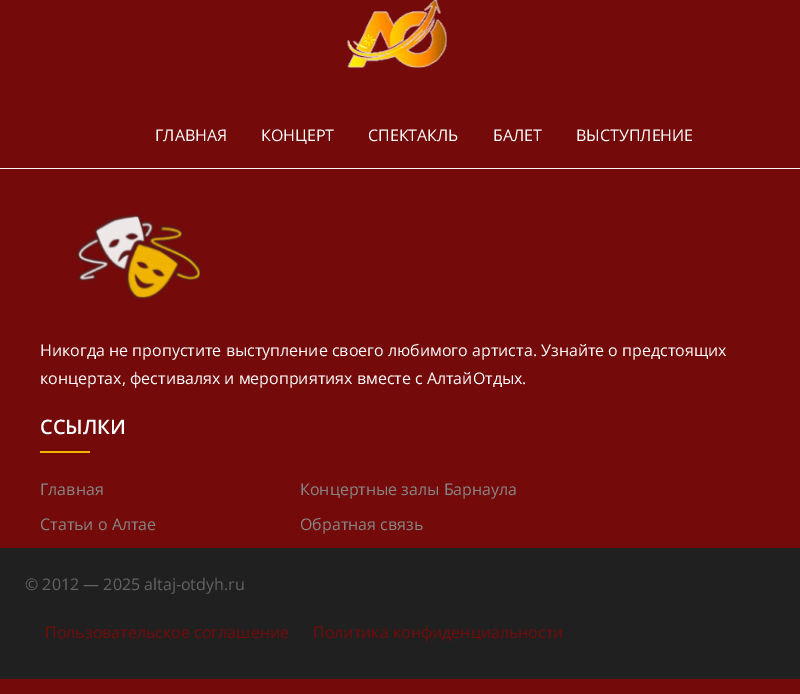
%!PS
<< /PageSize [800 694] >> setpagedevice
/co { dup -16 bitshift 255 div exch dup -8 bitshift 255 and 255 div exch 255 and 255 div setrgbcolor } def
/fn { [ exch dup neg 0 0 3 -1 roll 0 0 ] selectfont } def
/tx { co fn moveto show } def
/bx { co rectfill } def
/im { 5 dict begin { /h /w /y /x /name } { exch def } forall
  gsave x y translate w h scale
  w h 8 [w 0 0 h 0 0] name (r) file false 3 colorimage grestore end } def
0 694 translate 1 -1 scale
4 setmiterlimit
0 0 800 694 16#750A0A bx
(media/1.raw) 347 0 100 68 im
0 168 800 1 16#F4F4F4 bx
(media/2.raw) 76 214 126 85 im
40 451 50 2 16#EFB300 bx
0 548 800 131 16#202020 bx
(ГЛАВНАЯ) 155 141 /OpenSans-Regular 16 16#FFFFFF tx
(КОНЦЕРТ) 261 141 /OpenSans-Regular 16 16#FFFFFF tx
(СПЕКТАКЛЬ) 368 141 /OpenSans-Regular 16 16#FFFFFF tx
(БАЛЕТ) 493 141 /OpenSans-Regular 16 16#FFFFFF tx
(ВЫСТУПЛЕНИЕ) 576 141 /OpenSans-Regular 16 16#FFFFFF tx
(Никогда не пропустите выступление своего любимого артиста. Узнайте о предстоящих) 40 356 /OpenSans-Regular 16 16#FFFFFF tx
(концертах, фестивалях и мероприятиях вместе с АлтайОтдых.) 40 384 /OpenSans-Regular 16 16#FFFFFF tx
(ССЫЛКИ) 40 434 /OpenSans-SemiBold 20 16#FFFFFF tx
(Главная) 40 495 /OpenSans-Regular 16 16#878787 tx
(Концертные залы Барнаула) 300 495 /OpenSans-Regular 16 16#878787 tx
(Статьи о Алтае) 40 530 /OpenSans-Regular 16 16#878787 tx
(Обратная связь) 300 530 /OpenSans-Regular 16 16#878787 tx
(© 2012 — 2025 altaj-otdyh.ru) 25 590 /OpenSans-Regular 16 16#646464 tx
(Пользовательское соглашение) 45 638 /OpenSans-Regular 16 16#750A0A tx
(Политика конфиденциальности) 313 638 /OpenSans-Regular 16 16#750A0A tx
showpage
